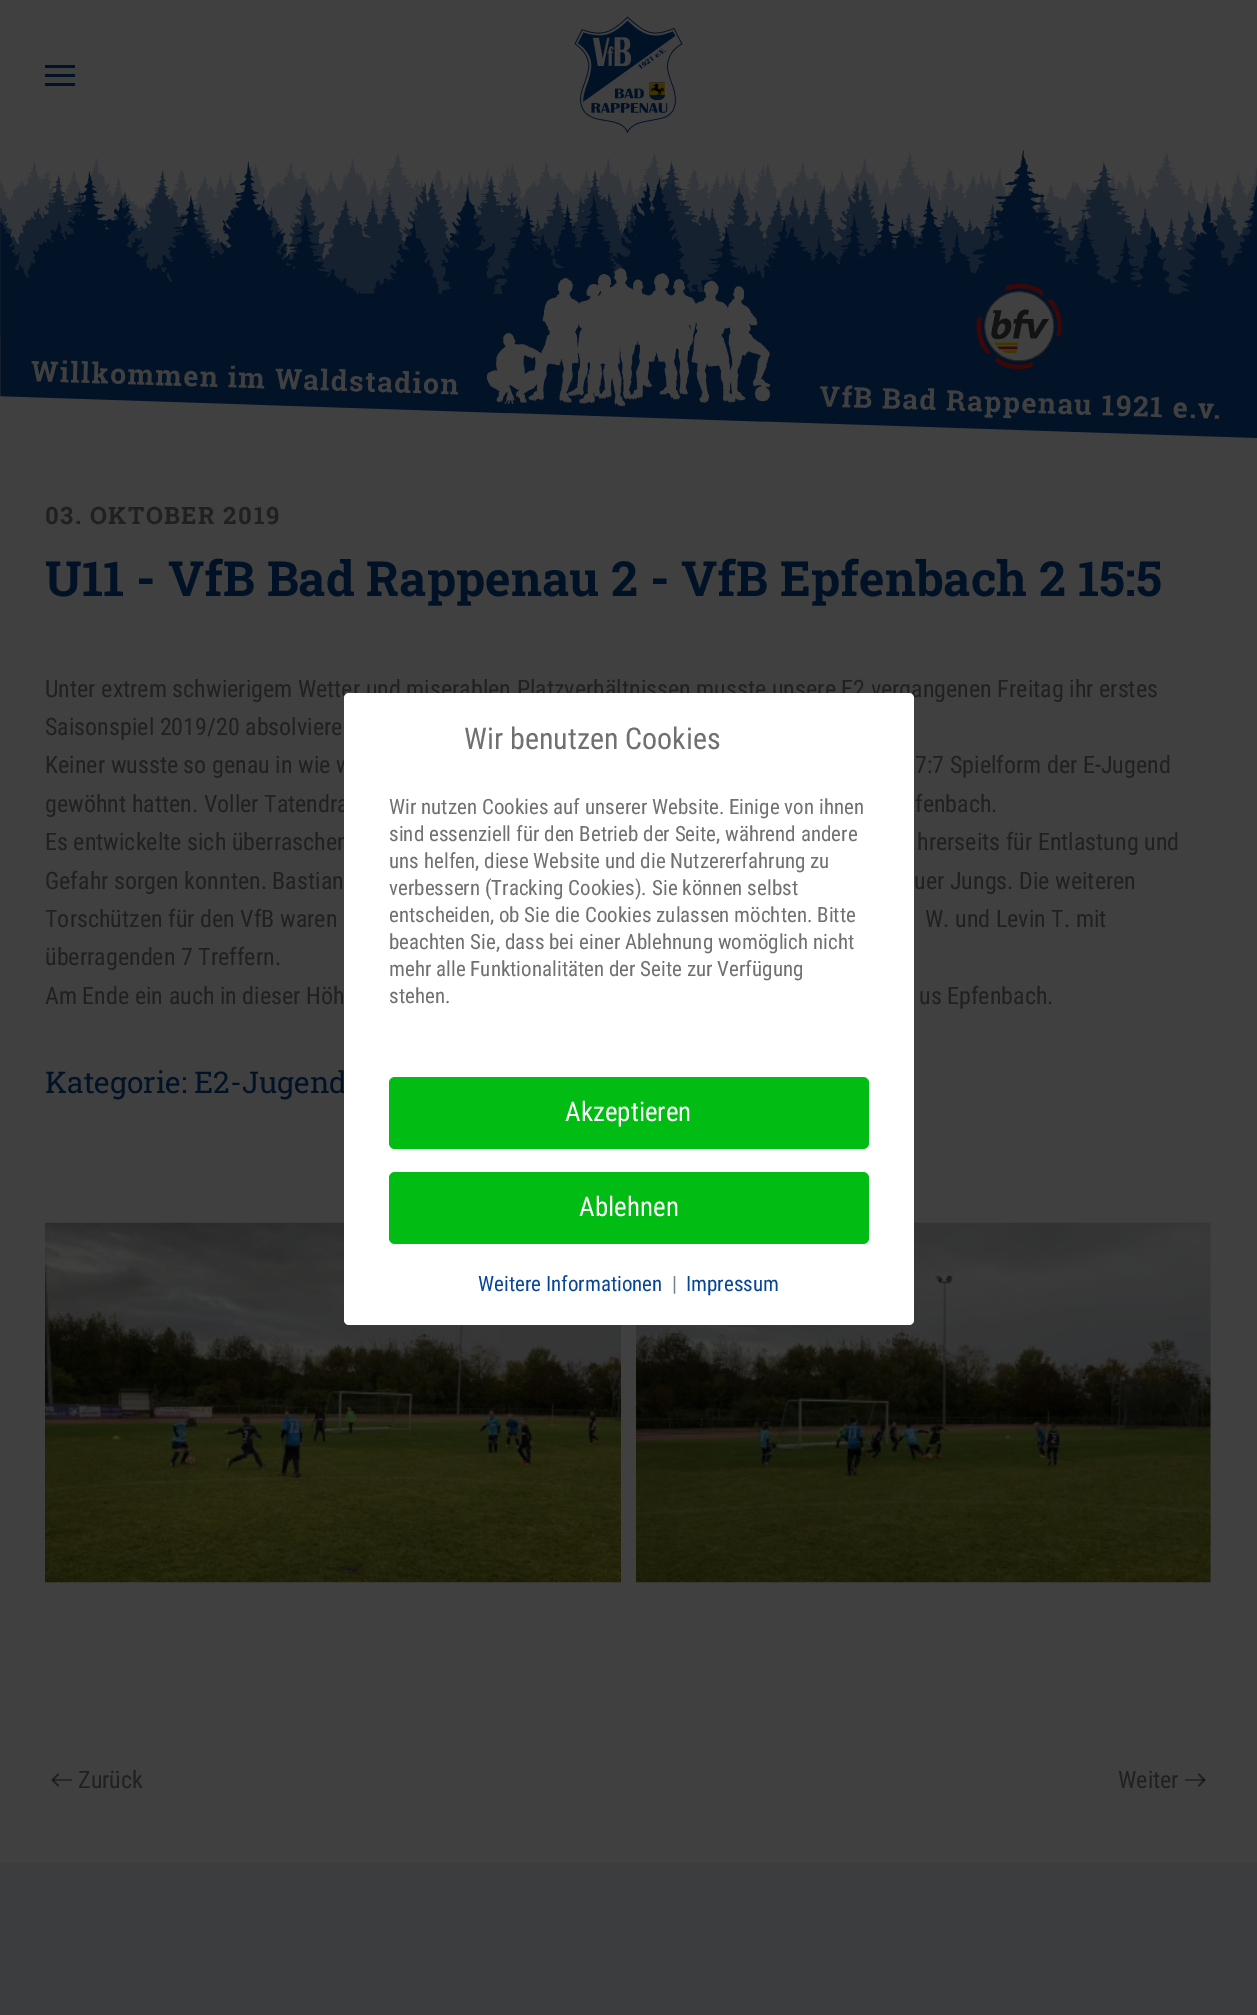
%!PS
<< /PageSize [1257 2015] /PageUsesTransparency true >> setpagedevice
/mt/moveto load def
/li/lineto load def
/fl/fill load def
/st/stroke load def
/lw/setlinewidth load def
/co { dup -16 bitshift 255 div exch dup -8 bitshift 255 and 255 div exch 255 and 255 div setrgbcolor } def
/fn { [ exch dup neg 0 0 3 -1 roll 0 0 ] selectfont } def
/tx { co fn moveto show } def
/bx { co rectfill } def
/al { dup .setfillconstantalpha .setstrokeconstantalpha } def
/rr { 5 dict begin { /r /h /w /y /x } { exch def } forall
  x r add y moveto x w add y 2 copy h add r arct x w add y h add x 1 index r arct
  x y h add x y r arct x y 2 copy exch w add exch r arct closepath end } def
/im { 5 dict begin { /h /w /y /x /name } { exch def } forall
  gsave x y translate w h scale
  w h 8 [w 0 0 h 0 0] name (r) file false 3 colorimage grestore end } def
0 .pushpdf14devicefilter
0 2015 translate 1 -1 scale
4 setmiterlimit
0 0 1257 2015 16#404040 bx
45 65 30 3 16#021226 bx
45 74 30 3 16#021226 bx
45 83 30 3 16#021226 bx
(media/1.raw) 574 16 109 118 im
(media/2.raw) 0 150 1257 288 im
(media/3.raw) 45 1222 576 361 im
(media/4.raw) 636 1222 575 361 im
16#202020 co
1.7 lw
58.5 1786 mt 52.5 1780 li 58.5 1774 li st
0.38 al
53 1779 19 2 16#000000 bx
1 al
16#202020 co
1198.5 1774 mt 1204.5 1780 li 1198.5 1786 li st
0.38 al
1185 1779 20 2 16#000000 bx
1 al
0 1863 1257 152 16#3C3D3E bx
/RobotoSlab-Bold 24 fn
16#202020 co
45 524 mt 1.5 0 (03. OKTOBER 2019) ashow
(U11 - VfB Bad Rappenau 2 - VfB Epfenbach 2 15:5) 45 596 /RobotoSlab-Bold 48.45 16#021226 tx
(Unter extrem schwierigem Wetter und miserablen Platzverhältnissen musste unsere E2 vergangenen Freitag ihr erstes) 45 697 /RobotoCondensed-Regular 24 16#202020 tx
(Saisonspiel 2019/20 absolviere) 45 735 /RobotoCondensed-Regular 24 16#202020 tx
(Keiner wusste so genau in wie w) 45 773 /RobotoCondensed-Regular 24 16#202020 tx
(7:7 Spielform der E-Jugend) 915 773 /RobotoCondensed-Regular 24 16#202020 tx
(gewöhnt hatten. Voller Tatendra) 45 812 /RobotoCondensed-Regular 24 16#202020 tx
(fenbach.) 915 812 /RobotoCondensed-Regular 24 16#202020 tx
(Es entwickelte sich überraschen) 45 850 /RobotoCondensed-Regular 24 16#202020 tx
(hrerseits für Entlastung und) 917 850 /RobotoCondensed-Regular 24 16#202020 tx
(Gefahr sorgen konnten. Bastian) 45 889 /RobotoCondensed-Regular 24 16#202020 tx
(uer Jungs. Die weiteren) 914 889 /RobotoCondensed-Regular 24 16#202020 tx
(Torschützen für den VfB waren) 45 927 /RobotoCondensed-Regular 24 16#202020 tx
(W. und Levin T. mit) 925 927 /RobotoCondensed-Regular 24 16#202020 tx
(überragenden 7 Treffern.) 45 965 /RobotoCondensed-Regular 24 16#202020 tx
(Am Ende ein auch in dieser Höh) 45 1004 /RobotoCondensed-Regular 24 16#202020 tx
(us Epfenbach.) 919 1004 /RobotoCondensed-Regular 24 16#202020 tx
(Kategorie: E2-Jugend) 45 1093 /RobotoSlab-Regular 30 16#021226 tx
(Zurück) 78 1788 /RobotoCondensed-Regular 24 16#202020 tx
(Weiter) 1118 1788 /RobotoCondensed-Regular 24 16#202020 tx
16#FFFFFF co
344 693 570 632 5 rr fl
(Wir benutzen Cookies) 464 749 /RobotoCondensed-Regular 30 16#707070 tx
(Wir nutzen Cookies auf unserer Website. Einige von ihnen) 389 814 /RobotoCondensed-Regular 21 16#707070 tx
(sind essenziell für den Betrieb der Seite, während andere) 389 841 /RobotoCondensed-Regular 21 16#707070 tx
(uns helfen, diese Website und die Nutzererfahrung zu) 389 868 /RobotoCondensed-Regular 21 16#707070 tx
(verbessern \(Tracking Cookies\). Sie können selbst) 389 895 /RobotoCondensed-Regular 21 16#707070 tx
(entscheiden, ob Sie die Cookies zulassen möchten. Bitte) 389 922 /RobotoCondensed-Regular 21 16#707070 tx
(beachten Sie, dass bei einer Ablehnung womöglich nicht) 389 949 /RobotoCondensed-Regular 21 16#707070 tx
(mehr alle Funktionalitäten der Seite zur Verfügung) 389 976 /RobotoCondensed-Regular 21 16#707070 tx
(stehen.) 389 1003 /RobotoCondensed-Regular 21 16#707070 tx
16#00BC13 co
389 1077 480 72 6 rr fl
(Akzeptieren) 565 1121 /RobotoCondensed-Regular 27 16#FFFFFF tx
16#00BC13 co
389 1172 480 72 6 rr fl
(Ablehnen) 579 1216 /RobotoCondensed-Regular 27 16#FFFFFF tx
(Weitere Informationen) 478 1291 /RobotoCondensed-Regular 21 16#074697 tx
(|) 672 1291 /RobotoCondensed-Regular 21 16#77808E tx
(Impressum) 686 1291 /RobotoCondensed-Regular 21 16#074697 tx
.poppdf14devicefilter showpage
